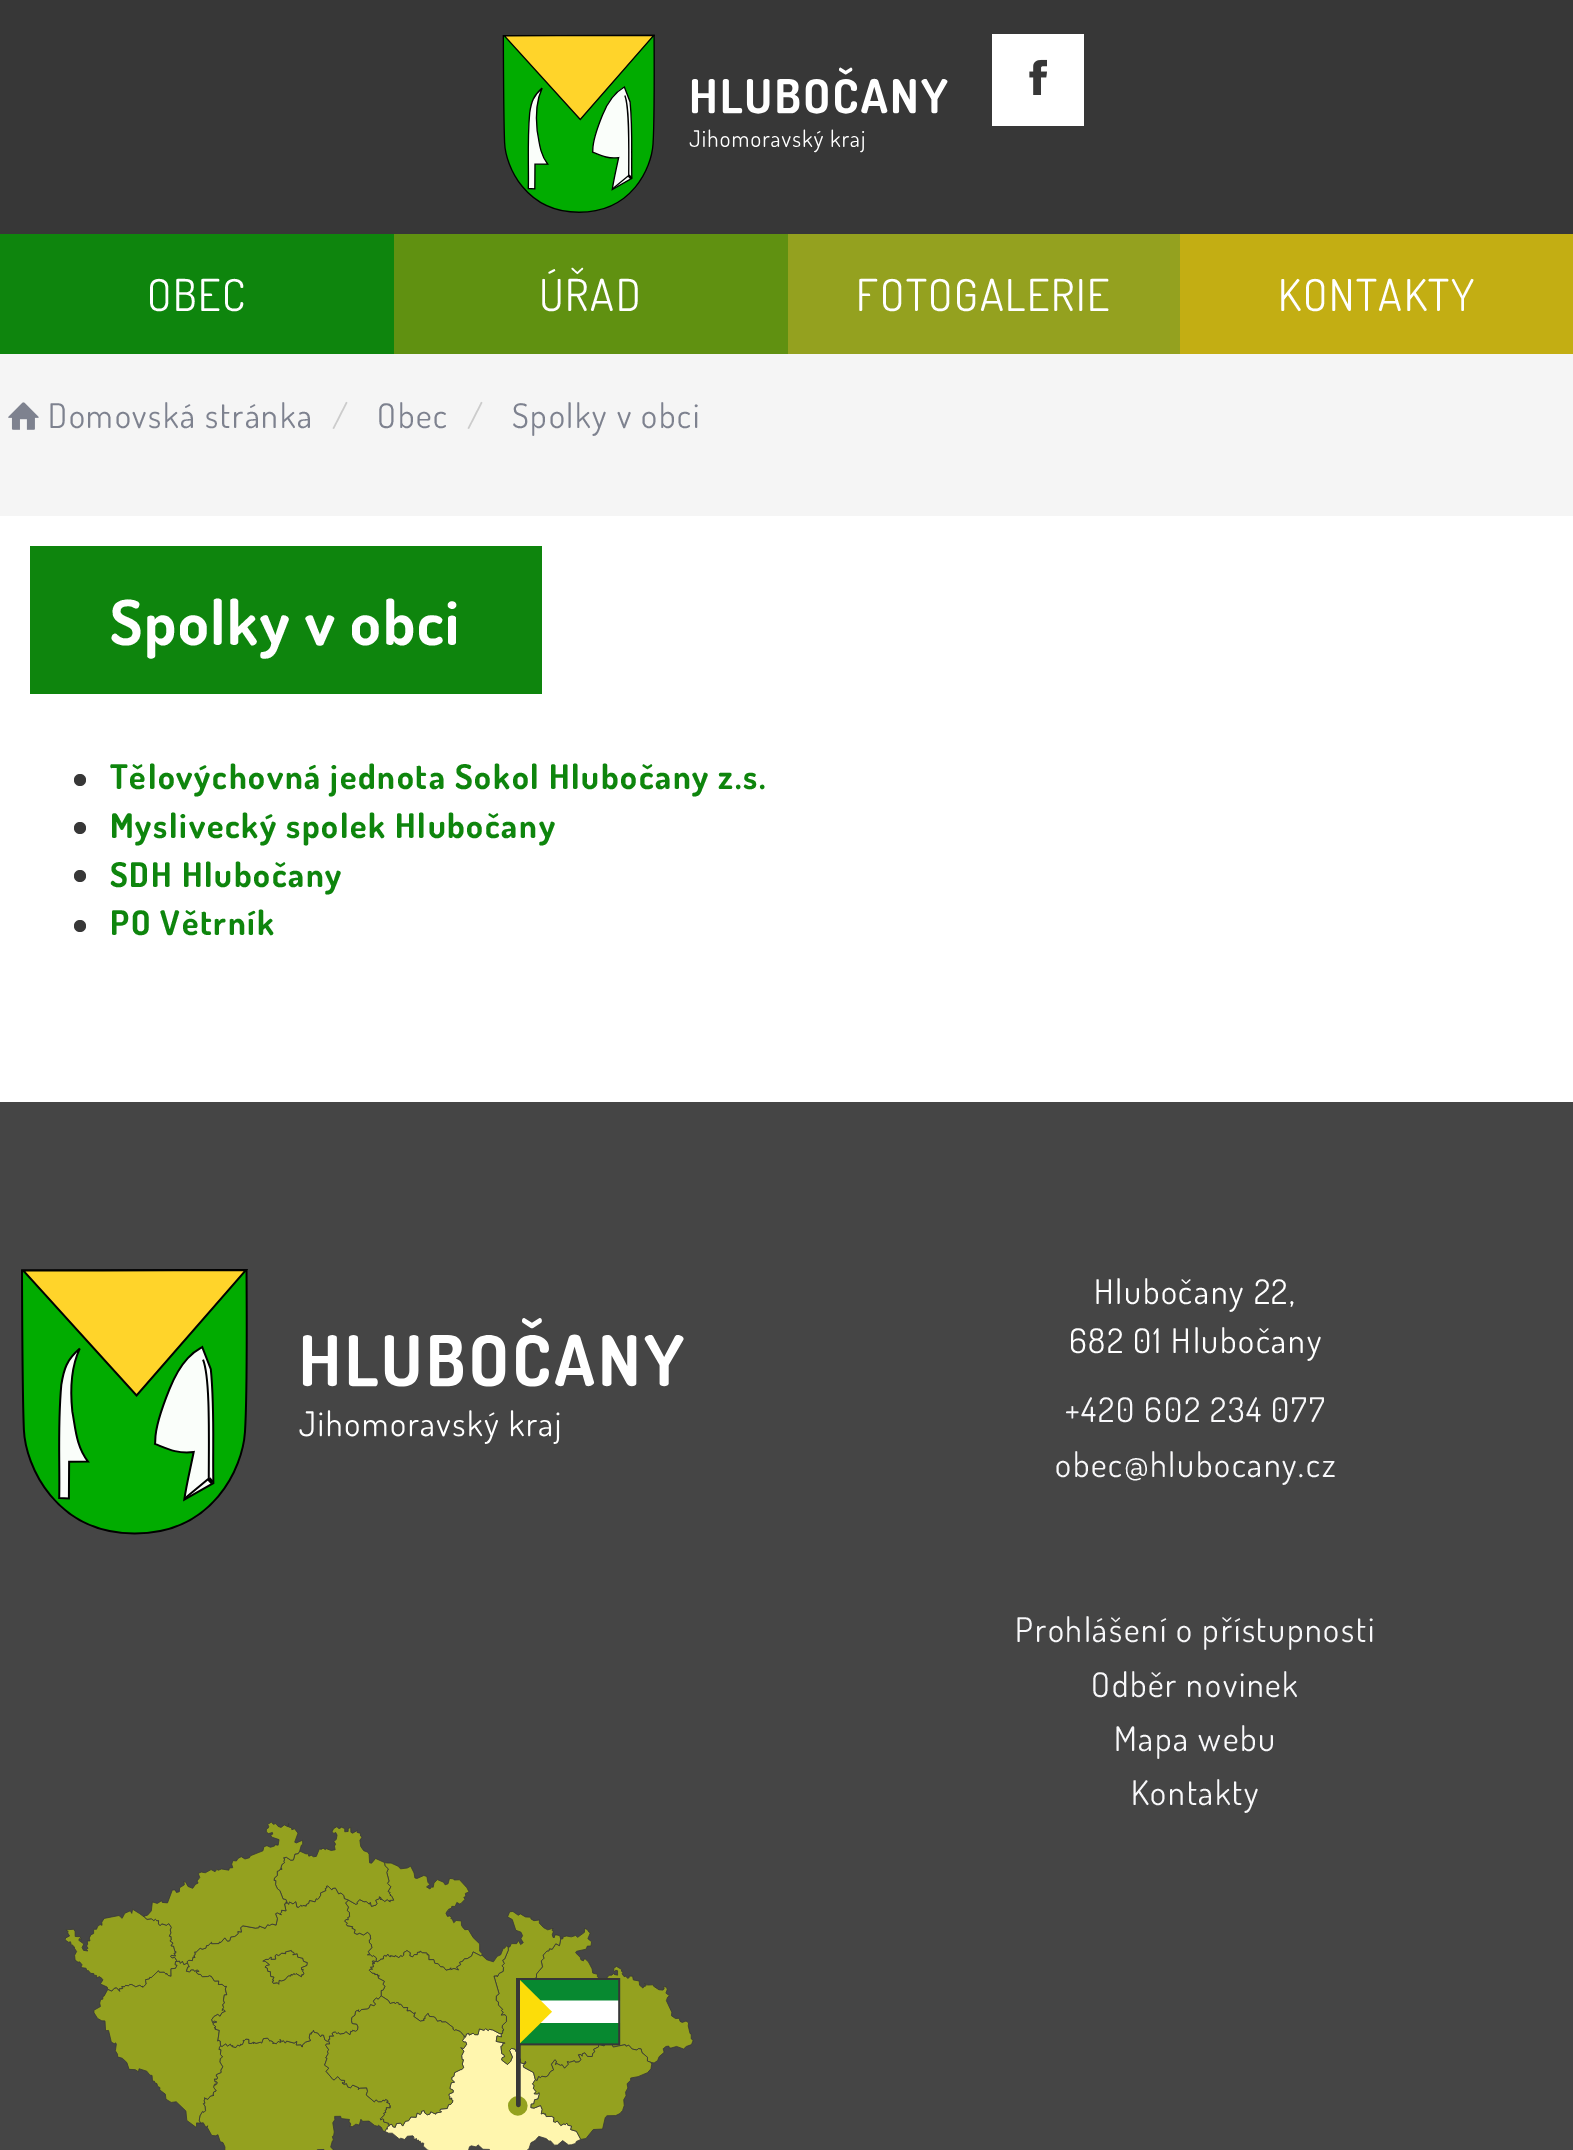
%!PS
<< /PageSize [1573 2150] >> setpagedevice
/mt/moveto load def
/fl/fill load def
/co { dup -16 bitshift 255 div exch dup -8 bitshift 255 and 255 div exch 255 and 255 div setrgbcolor } def
/fn { [ exch dup neg 0 0 3 -1 roll 0 0 ] selectfont } def
/bx { co rectfill } def
/ci { newpath 0 360 arc closepath } def
/im { 5 dict begin { /h /w /y /x /name } { exch def } forall
  gsave x y translate w h scale
  w h 8 [w 0 0 h 0 0] name (r) file false 3 colorimage grestore end } def
0 2150 translate 1 -1 scale
4 setmiterlimit
0 0 1573 2150 16#FFFFFF bx
0 0 1573 234 16#373737 bx
(media/1.raw) 502 34 446 179 im
992 34 92 92 16#FFFFFF bx
(media/2.raw) 1029 59 18 36 im
0 234 394 120 16#0E850D bx
394 234 394 120 16#609111 bx
788 234 392 120 16#94A11F bx
1180 234 393 120 16#C3AE13 bx
0 354 1573 162 16#F5F5F5 bx
(media/3.raw) 8 402 31 28 im
30 546 512 148 16#0E850D bx
16#373737 co
80 780 6 ci fl
80 828 6 ci fl
80 876 6 ci fl
80 926 6 ci fl
0 1102 1573 1048 16#454545 bx
(media/4.raw) 21 1269 663 266 im
(media/5.raw) 65 1822 629 328 im
/Dosis-Regular 44 fn
16#FFFFFF co
147 311 mt 1.7 0 (OBEC) ashow
539 311 mt 1.7 0 (ÚŘAD) ashow
856 311 mt 1.7 0 (FOTOGALERIE) ashow
1278 311 mt 1.7 0 (KONTAKTY) ashow
/Dosis-Regular 34 fn
16#7E828F co
48 428 mt 1.7 0 (Domovská stránka) ashow
16#CCCCCC co
332 428 mt 1.7 0 (/) ashow
16#7E828F co
377 428 mt 1.7 0 (Obec) ashow
16#CCCCCC co
467 428 mt 1.7 0 (/) ashow
16#7E828F co
512 428 mt 1.7 0 (Spolky v obci) ashow
/Dosis-Bold 62 fn
16#FFFFFF co
110 645 mt 1.7 0 (Spolky v obci) ashow
/Dosis-Bold 34 fn
16#0E850D co
110 789 mt 1.7 0 (Tělovýchovná jednota Sokol Hlubočany z.s.) ashow
110 838 mt 1.7 0 (Myslivecký spolek Hlubočany) ashow
110 887 mt 1.7 0 (SDH Hlubočany) ashow
110 935 mt 1.7 0 (PO Větrník) ashow
/Dosis-Regular 34 fn
16#FFFFFF co
1094 1304 mt 1.7 0 (Hlubočany 22,) ashow
1069 1353 mt 1.7 0 (682 01 Hlubočany) ashow
16#F8F8FA co
1065 1422 mt 1.7 0 (+420 602 234 077) ashow
1055 1477 mt 1.7 0 (obec@hlubocany.cz) ashow
1015 1642 mt 1.7 0 (Prohlášení o přístupnosti) ashow
1091 1697 mt 1.7 0 (Odběr novinek) ashow
1114 1751 mt 1.7 0 (Mapa webu) ashow
1131 1805 mt 1.7 0 (Kontakty) ashow
showpage
